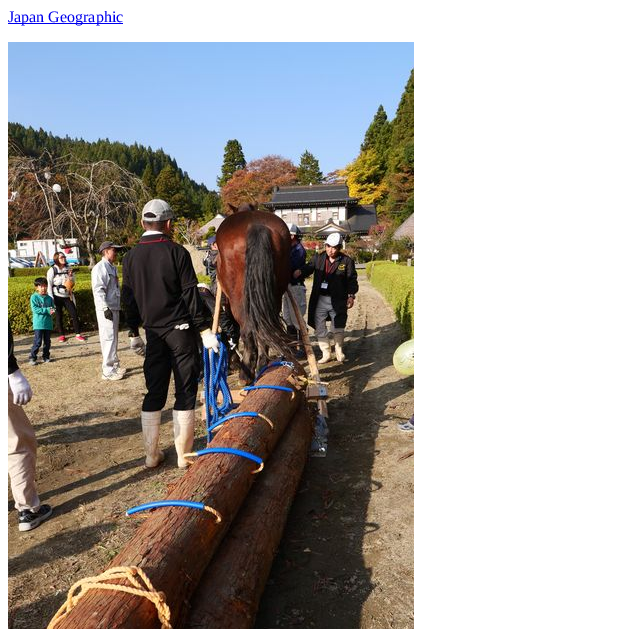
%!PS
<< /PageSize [626 629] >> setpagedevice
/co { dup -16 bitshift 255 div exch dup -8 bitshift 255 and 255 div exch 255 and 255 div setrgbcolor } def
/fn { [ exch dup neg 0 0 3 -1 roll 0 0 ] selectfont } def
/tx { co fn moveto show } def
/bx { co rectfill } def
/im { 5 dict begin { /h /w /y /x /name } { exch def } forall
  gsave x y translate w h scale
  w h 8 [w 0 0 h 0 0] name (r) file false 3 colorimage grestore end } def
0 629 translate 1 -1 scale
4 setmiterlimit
0 0 626 629 16#FFFFFF bx
8 23 115 1 16#0000EE bx
(media/1.raw) 8 42 406 587 im
(Japan Geographic) 8 22 /LiberationSerif-Regular 16 16#0000EE tx
showpage
